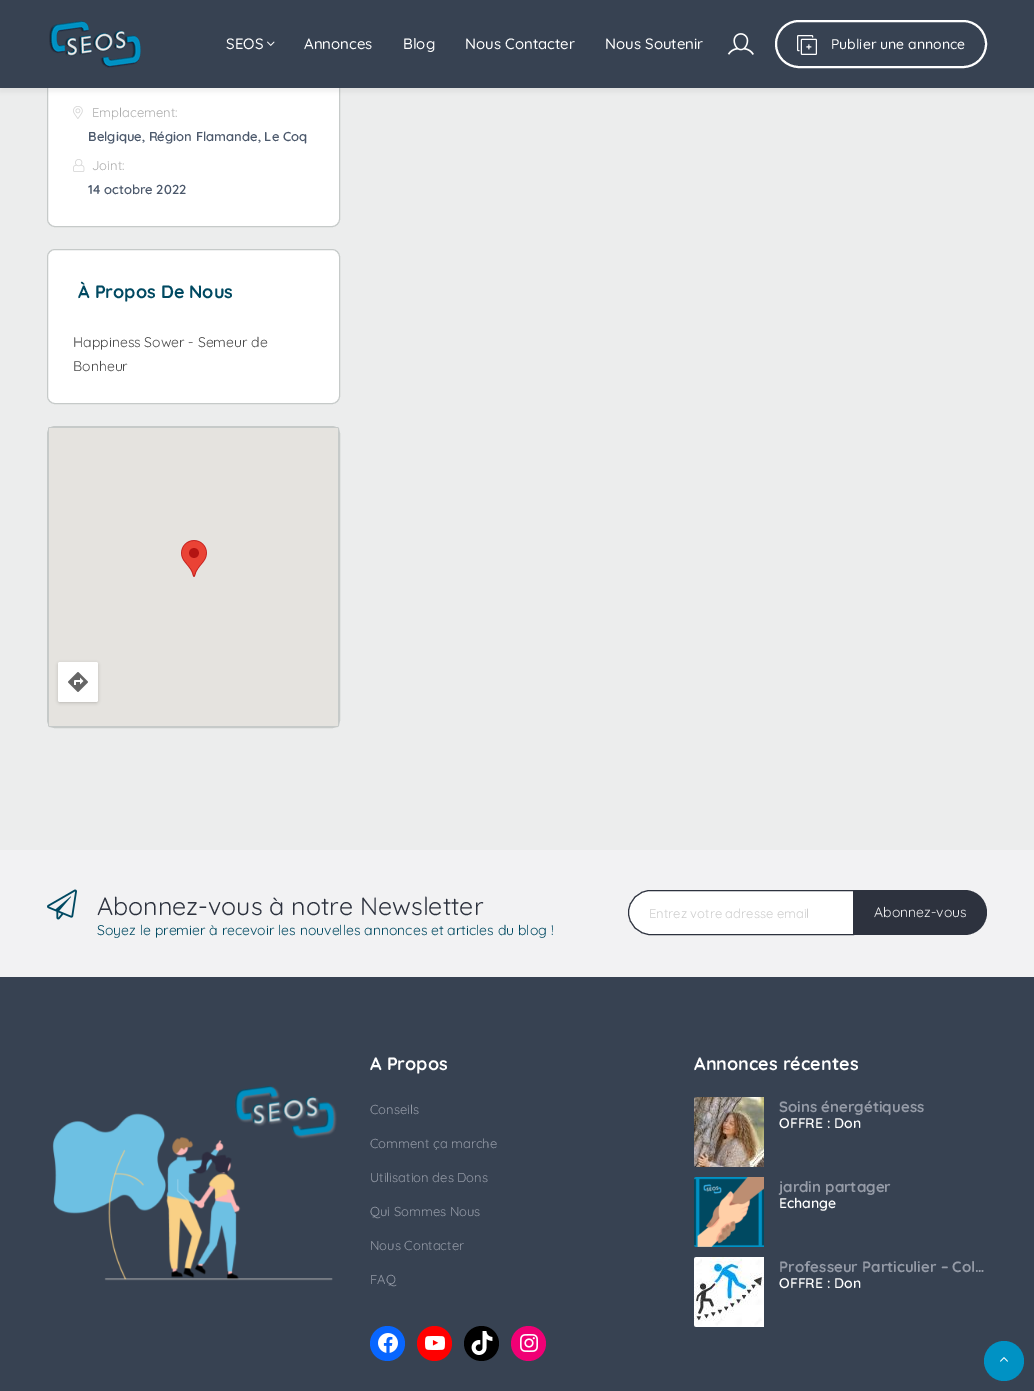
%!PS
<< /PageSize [1034 1391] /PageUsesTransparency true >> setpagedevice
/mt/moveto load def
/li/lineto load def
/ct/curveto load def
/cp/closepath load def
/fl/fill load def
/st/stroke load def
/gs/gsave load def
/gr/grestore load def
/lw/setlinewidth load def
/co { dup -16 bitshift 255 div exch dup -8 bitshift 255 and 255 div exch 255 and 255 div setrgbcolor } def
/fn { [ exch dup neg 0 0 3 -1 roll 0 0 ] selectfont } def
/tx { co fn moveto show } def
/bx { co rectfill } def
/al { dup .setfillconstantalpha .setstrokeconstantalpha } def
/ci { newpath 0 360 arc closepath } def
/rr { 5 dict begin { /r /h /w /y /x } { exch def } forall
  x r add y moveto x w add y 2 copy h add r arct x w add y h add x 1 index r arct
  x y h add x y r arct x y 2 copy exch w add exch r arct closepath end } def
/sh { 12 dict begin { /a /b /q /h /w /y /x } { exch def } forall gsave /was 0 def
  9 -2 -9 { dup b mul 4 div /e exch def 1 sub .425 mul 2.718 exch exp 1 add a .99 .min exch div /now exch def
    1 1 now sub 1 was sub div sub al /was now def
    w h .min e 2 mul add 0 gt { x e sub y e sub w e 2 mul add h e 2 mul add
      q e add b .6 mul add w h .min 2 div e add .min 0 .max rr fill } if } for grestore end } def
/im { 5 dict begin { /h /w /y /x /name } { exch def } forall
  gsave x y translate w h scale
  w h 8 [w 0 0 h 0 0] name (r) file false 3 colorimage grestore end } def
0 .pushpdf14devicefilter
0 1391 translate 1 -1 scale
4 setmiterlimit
0 0 1034 1391 16#ECEDED bx
16#FFFFFF co
47.5 -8.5 292 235 7.5 rr gs fl gr
16#C6CAC9 co
st
16#171717 co
0 4 1034 88 0 2 .06 sh
0 0 1034 88 16#374252 bx
(media/1.raw) 49 21 92 47 im
(media/2.raw) 267 41 8 5 im
(media/3.raw) 727 33 27 22 im
16#FFFFFF co
2 lw
776 21 210 46 23 rr st
(media/4.raw) 797 35 20 20 im
(media/5.raw) 73 106 10 13 im
(media/6.raw) 73 159 12 13 im
47.5 249.5 292 154 7.5 rr gs fl gr
16#C6CAC9 co
1 lw
st
47.5 426.5 292 301 7.5 rr st
48.5 427.5 290 299 1.5 rr st
16#E5E3DF co
49 428 289 298 1 rr fl
(media/7.raw) 181 540 26 37 im
16#000000 co
59 664 38 38 1 2 .3 sh
16#FFFFFF co
58 662 40 40 2 rr fl
(media/8.raw) 68 672 20 20 im
0 850 1034 127 16#F2F2F3 bx
(media/9.raw) 47 889 30 31 im
16#FFFFFF co
650.5 890.5 mt 853.5 890.5 li 853.5 934.5 li 650.5 934.5 li 638.5 934.5 628.5 924.5 628.5 912.5 ct 628.5 900.5 638.5 890.5 650.5 890.5 ct cp gs fl gr
16#2D323E co
st
854 890 mt 964.5 890 li 977 890 987 900 987 912.5 ct 987 925 977 935 964.5 935 ct 854 935 li cp fl
0 977 1034 414 16#374252 bx
(media/10.raw) 52 1086 285 195 im
16#0866FF co
387.5 1343.5 17.5 ci fl
(media/11.raw) 378 1333 20 20 im
16#FF0000 co
434.5 1343.5 17.5 ci fl
(media/12.raw) 425 1336 20 14 im
16#000000 co
481.5 1343.5 17.5 ci fl
(media/13.raw) 471 1331 22 24 im
16#F00075 co
528.5 1343.5 17.5 ci fl
(media/14.raw) 520 1334 18 18 im
(media/15.raw) 694 1097 70 70 im
(media/16.raw) 694 1177 70 70 im
(media/17.raw) 694 1257 70 70 im
16#0092C4 co
1004 1361 20 ci fl
(media/18.raw) 1000 1357 8 5 im
(SEOS) 226 49 /Quicksand-Medium 15 16#FFFFFF tx
(Annonces) 304 49 /Quicksand-Medium 15 16#FFFFFF tx
(Blog) 403 49 /Quicksand-Medium 15 16#FFFFFF tx
(Nous Contacter) 465 49 /Quicksand-Medium 15 16#FFFFFF tx
(Nous Soutenir) 605 49 /Quicksand-Medium 15 16#FFFFFF tx
(Publier une annonce) 831 49 /Quicksand-Medium 14 16#FFFFFF tx
(Emplacement:) 92 117 /Quicksand-Regular 13 16#AAAAAA tx
(Belgique, Région Flamande, Le Coq) 88 141 /Quicksand-SemiBold 13 16#4B586B tx
(Joint:) 92 170 /Quicksand-Regular 13 16#AAAAAA tx
(14 octobre 2022) 88 194 /Quicksand-SemiBold 13 16#4B586B tx
(À Propos De Nous) 78 298 /Quicksand-Bold 18 16#004961 tx
(Happiness Sower - Semeur de) 73 347 /Quicksand-Regular 14 16#484848 tx
(Bonheur) 73 371 /Quicksand-Regular 14 16#484848 tx
(Abonnez-vous à notre Newsletter) 97 915 /Quicksand-Regular 25 16#2D323E tx
(Soyez le premier à recevoir les nouvelles annonces et articles du blog !) 97 935 /Quicksand-Regular 14 16#004961 tx
(Entrez votre adresse email) 649 918 /Quicksand-Regular 13 16#CCCCCC tx
(Abonnez-vous) 874 917 /Quicksand-Regular 14 16#F2F2F3 tx
(A Propos) 370 1070 /Quicksand-Bold 18 16#FFFFFF tx
(Conseils) 370 1114 /Quicksand-Regular 13 16#959BA7 tx
(Comment ça marche) 370 1148 /Quicksand-Regular 13 16#959BA7 tx
(Utilisation des Dons) 370 1182 /Quicksand-Regular 13 16#959BA7 tx
(Qui Sommes Nous) 370 1216 /Quicksand-Regular 13 16#959BA7 tx
(Nous Contacter) 370 1250 /Quicksand-Regular 13 16#959BA7 tx
(FAQ) 370 1284 /Quicksand-Regular 13 16#959BA7 tx
(Annonces récentes) 694 1070 /Quicksand-Bold 18 16#FFFFFF tx
(Soins énergétiquess) 779 1112 /Quicksand-Bold 15 16#959BA7 tx
(OFFRE : Don) 779 1128 /Quicksand-SemiBold 14 16#FFFFFF tx
(jardin partager) 779 1192 /Quicksand-Bold 15 16#959BA7 tx
(Echange) 779 1208 /Quicksand-SemiBold 14 16#FFFFFF tx
(Professeur Particulier – Col…) 779 1272 /Quicksand-Bold 15 16#959BA7 tx
(OFFRE : Don) 779 1288 /Quicksand-SemiBold 14 16#FFFFFF tx
.poppdf14devicefilter showpage
